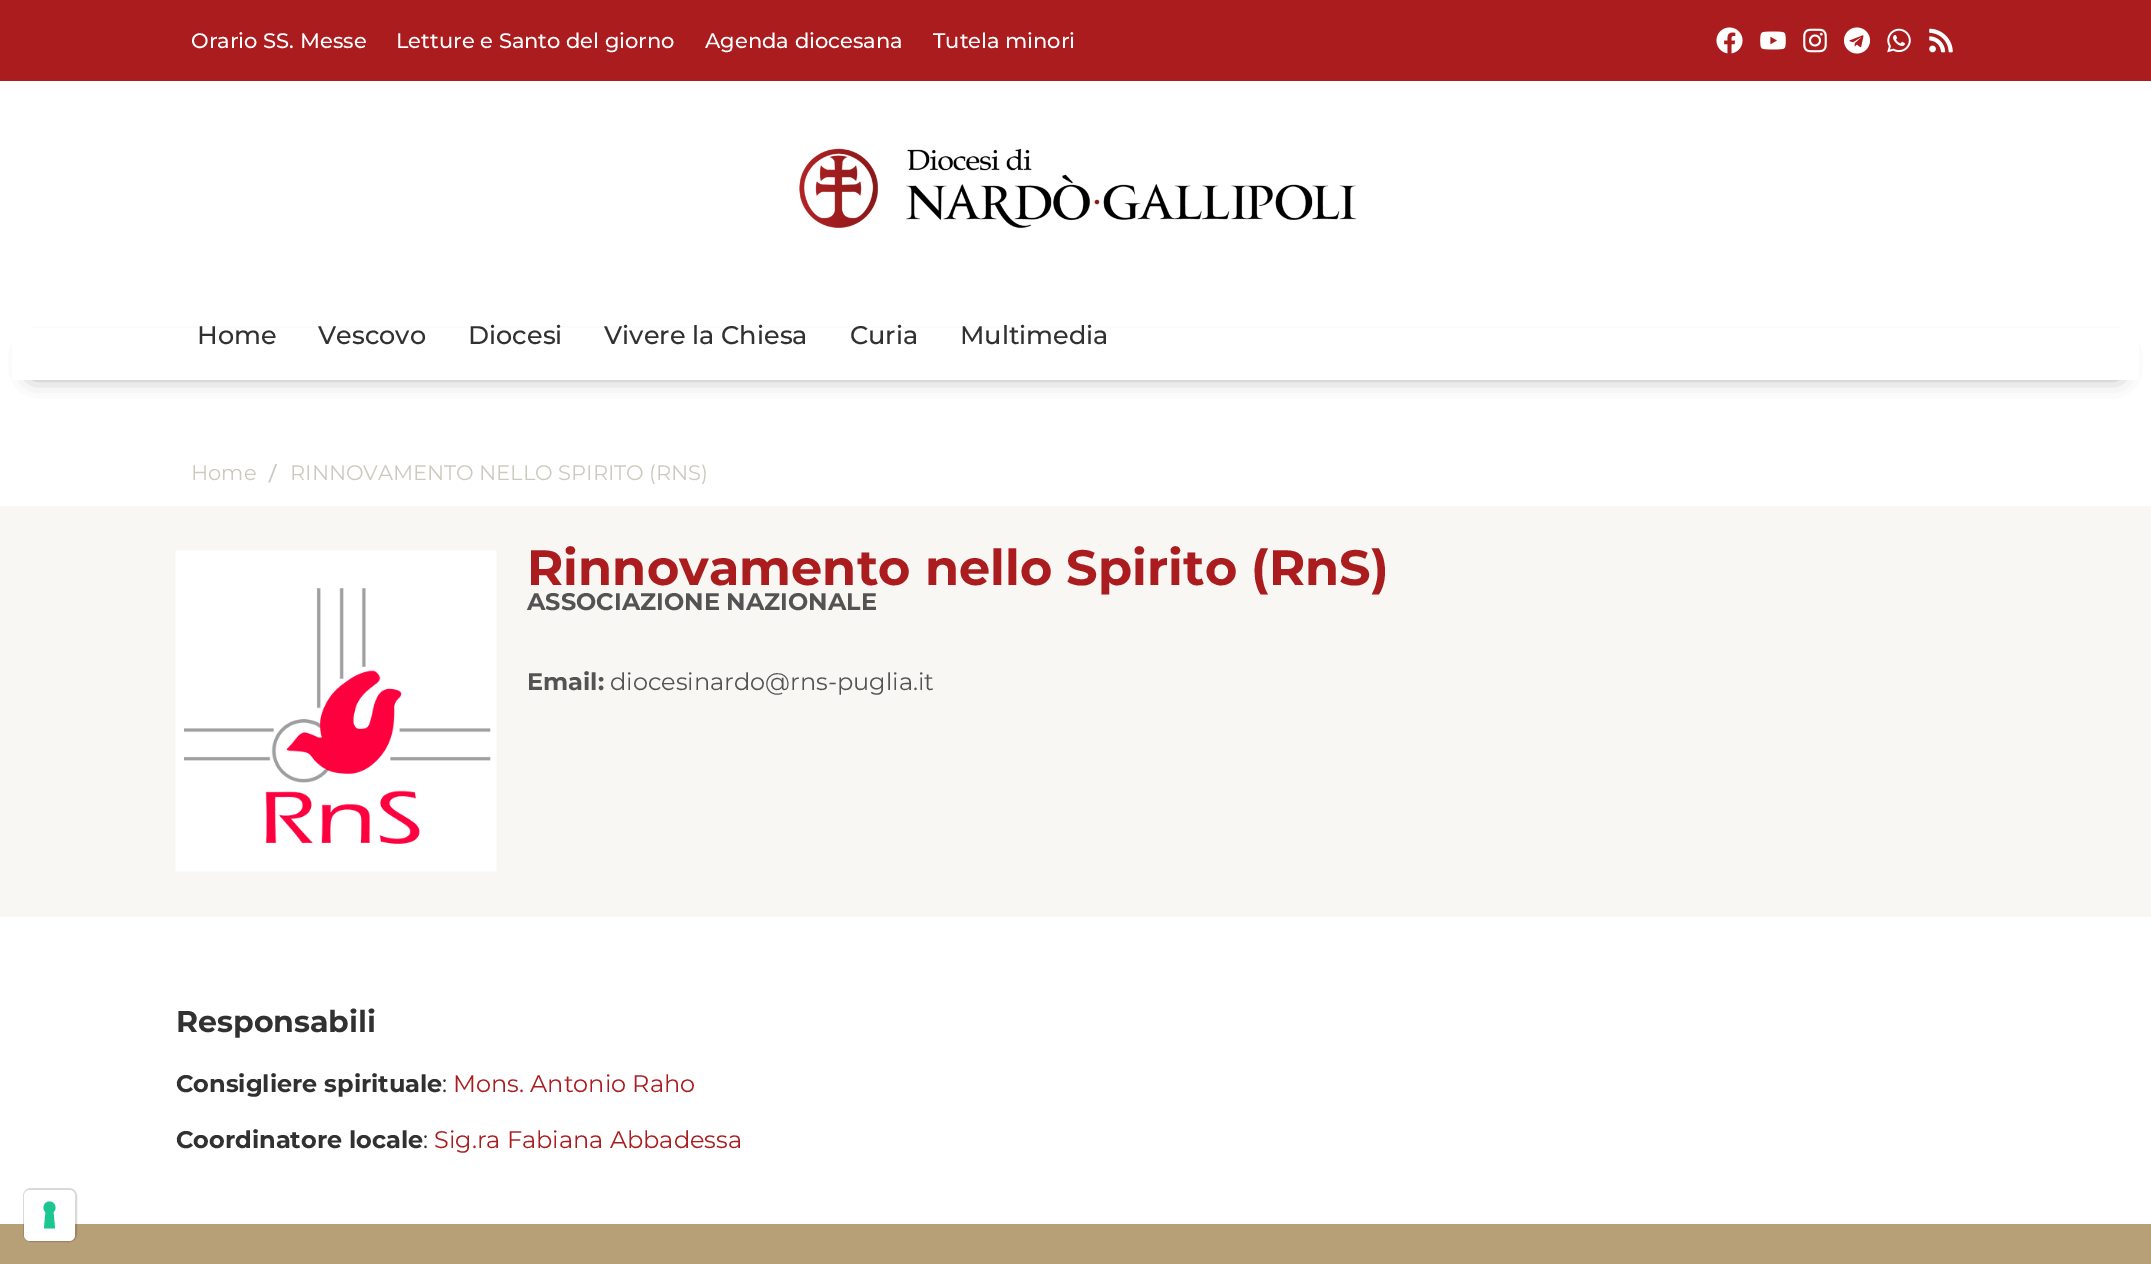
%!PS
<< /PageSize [2151 1264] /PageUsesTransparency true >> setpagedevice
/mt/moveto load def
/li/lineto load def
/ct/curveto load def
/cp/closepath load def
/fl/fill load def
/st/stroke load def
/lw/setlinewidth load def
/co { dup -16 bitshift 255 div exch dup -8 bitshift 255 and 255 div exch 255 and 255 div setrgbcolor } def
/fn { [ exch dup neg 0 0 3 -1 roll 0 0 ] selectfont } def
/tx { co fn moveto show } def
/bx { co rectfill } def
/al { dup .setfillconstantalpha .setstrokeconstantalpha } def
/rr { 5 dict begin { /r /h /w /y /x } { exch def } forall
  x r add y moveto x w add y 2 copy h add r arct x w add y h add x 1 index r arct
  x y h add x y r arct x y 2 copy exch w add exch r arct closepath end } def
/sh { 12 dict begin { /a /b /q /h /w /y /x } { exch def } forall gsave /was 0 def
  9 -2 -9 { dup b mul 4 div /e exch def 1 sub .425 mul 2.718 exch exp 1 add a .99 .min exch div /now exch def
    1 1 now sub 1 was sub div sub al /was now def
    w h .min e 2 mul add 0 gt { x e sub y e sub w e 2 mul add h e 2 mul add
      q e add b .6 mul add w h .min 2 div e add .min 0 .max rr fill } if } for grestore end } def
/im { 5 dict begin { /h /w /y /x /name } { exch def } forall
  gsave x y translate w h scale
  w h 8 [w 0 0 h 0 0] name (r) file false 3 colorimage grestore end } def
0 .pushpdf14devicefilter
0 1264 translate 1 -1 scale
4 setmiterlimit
0 0 2151 1264 16#FFFFFF bx
0 0 2151 81 16#AB1C1E bx
(media/1.raw) 1716 27 27 27 im
(media/2.raw) 1760 31 26 19 im
(media/3.raw) 1803 28 24 25 im
(media/4.raw) 1844 27 27 27 im
(media/5.raw) 1887 28 24 25 im
(media/6.raw) 1929 28 24 25 im
(media/7.raw) 799 148 558 81 im
16#000000 co
33 351 2085 23 0 11 .5 sh
12 328 2127 52 16#FFFFFF bx
0 506 2151 411 16#F8F7F4 bx
(media/8.raw) 175 550 322 322 im
0 1224 2151 40 16#B79F78 bx
0.15 al
16#000000 co
2 lw
24 1189 52 52 7 rr st
1 al
16#FFFFFF co
24 1190 51 51 6 rr fl
16#1CC691 co
49.5 1201.5 mt 55 1201.5 57.5 1208.5 53.5 1212 ct 55 1228.5 li 44 1228.5 li 45.5 1212 li 41.5 1208.5 44 1201.5 49.5 1201.5 ct cp eofill
(Orario SS. Messe) 191 48 /Montserrat-Medium 21 16#FFFFFF tx
(Letture e Santo del giorno) 396 48 /Montserrat-Medium 21 16#FFFFFF tx
(Agenda diocesana) 705 48 /Montserrat-Medium 21 16#FFFFFF tx
(Tutela minori) 933 48 /Montserrat-Medium 21 16#FFFFFF tx
(Home) 197 344 /Montserrat-Medium 25.5 16#313131 tx
(Vescovo) 318 344 /Montserrat-Medium 25.5 16#313131 tx
(Diocesi) 468 344 /Montserrat-Medium 25.5 16#313131 tx
(Vivere la Chiesa) 604 344 /Montserrat-Medium 25.5 16#313131 tx
(Curia) 850 344 /Montserrat-Medium 25.5 16#313131 tx
(Multimedia) 960 344 /Montserrat-Medium 25.5 16#313131 tx
(Home) 191 480 /Montserrat-Regular 21 16#CCC9BE tx
(/) 268 481 /Roboto-Regular 24 16#CCC9BE tx
(RINNOVAMENTO NELLO SPIRITO \(RNS\)) 290 480 /Montserrat-Regular 21 16#CCC9BE tx
(Rinnovamento nello Spirito \(RnS\)) 527 585 /Montserrat-Bold 49.5 16#AB1C1E tx
(ASSOCIAZIONE NAZIONALE) 527 610 /Montserrat-Bold 24 16#535353 tx
(Email:) 527 690 /Montserrat-Bold 24 16#535353 tx
(diocesinardo@rns-puglia.it) 610 690 /Montserrat-Regular 24 16#535353 tx
(Responsabili) 176 1032 /Montserrat-Bold 30 16#313131 tx
(Consigliere spirituale) 176 1092 /Montserrat-Bold 24 16#313131 tx
(:) 442 1092 /Montserrat-Regular 24 16#313131 tx
(Mons. Antonio Raho) 453 1092 /Montserrat-Regular 24 16#AB1C1E tx
(Coordinatore locale) 176 1148 /Montserrat-Bold 24 16#313131 tx
(:) 423 1148 /Montserrat-Regular 24 16#313131 tx
(Sig.ra Fabiana Abbadessa) 434 1148 /Montserrat-Regular 24 16#AB1C1E tx
.poppdf14devicefilter showpage
